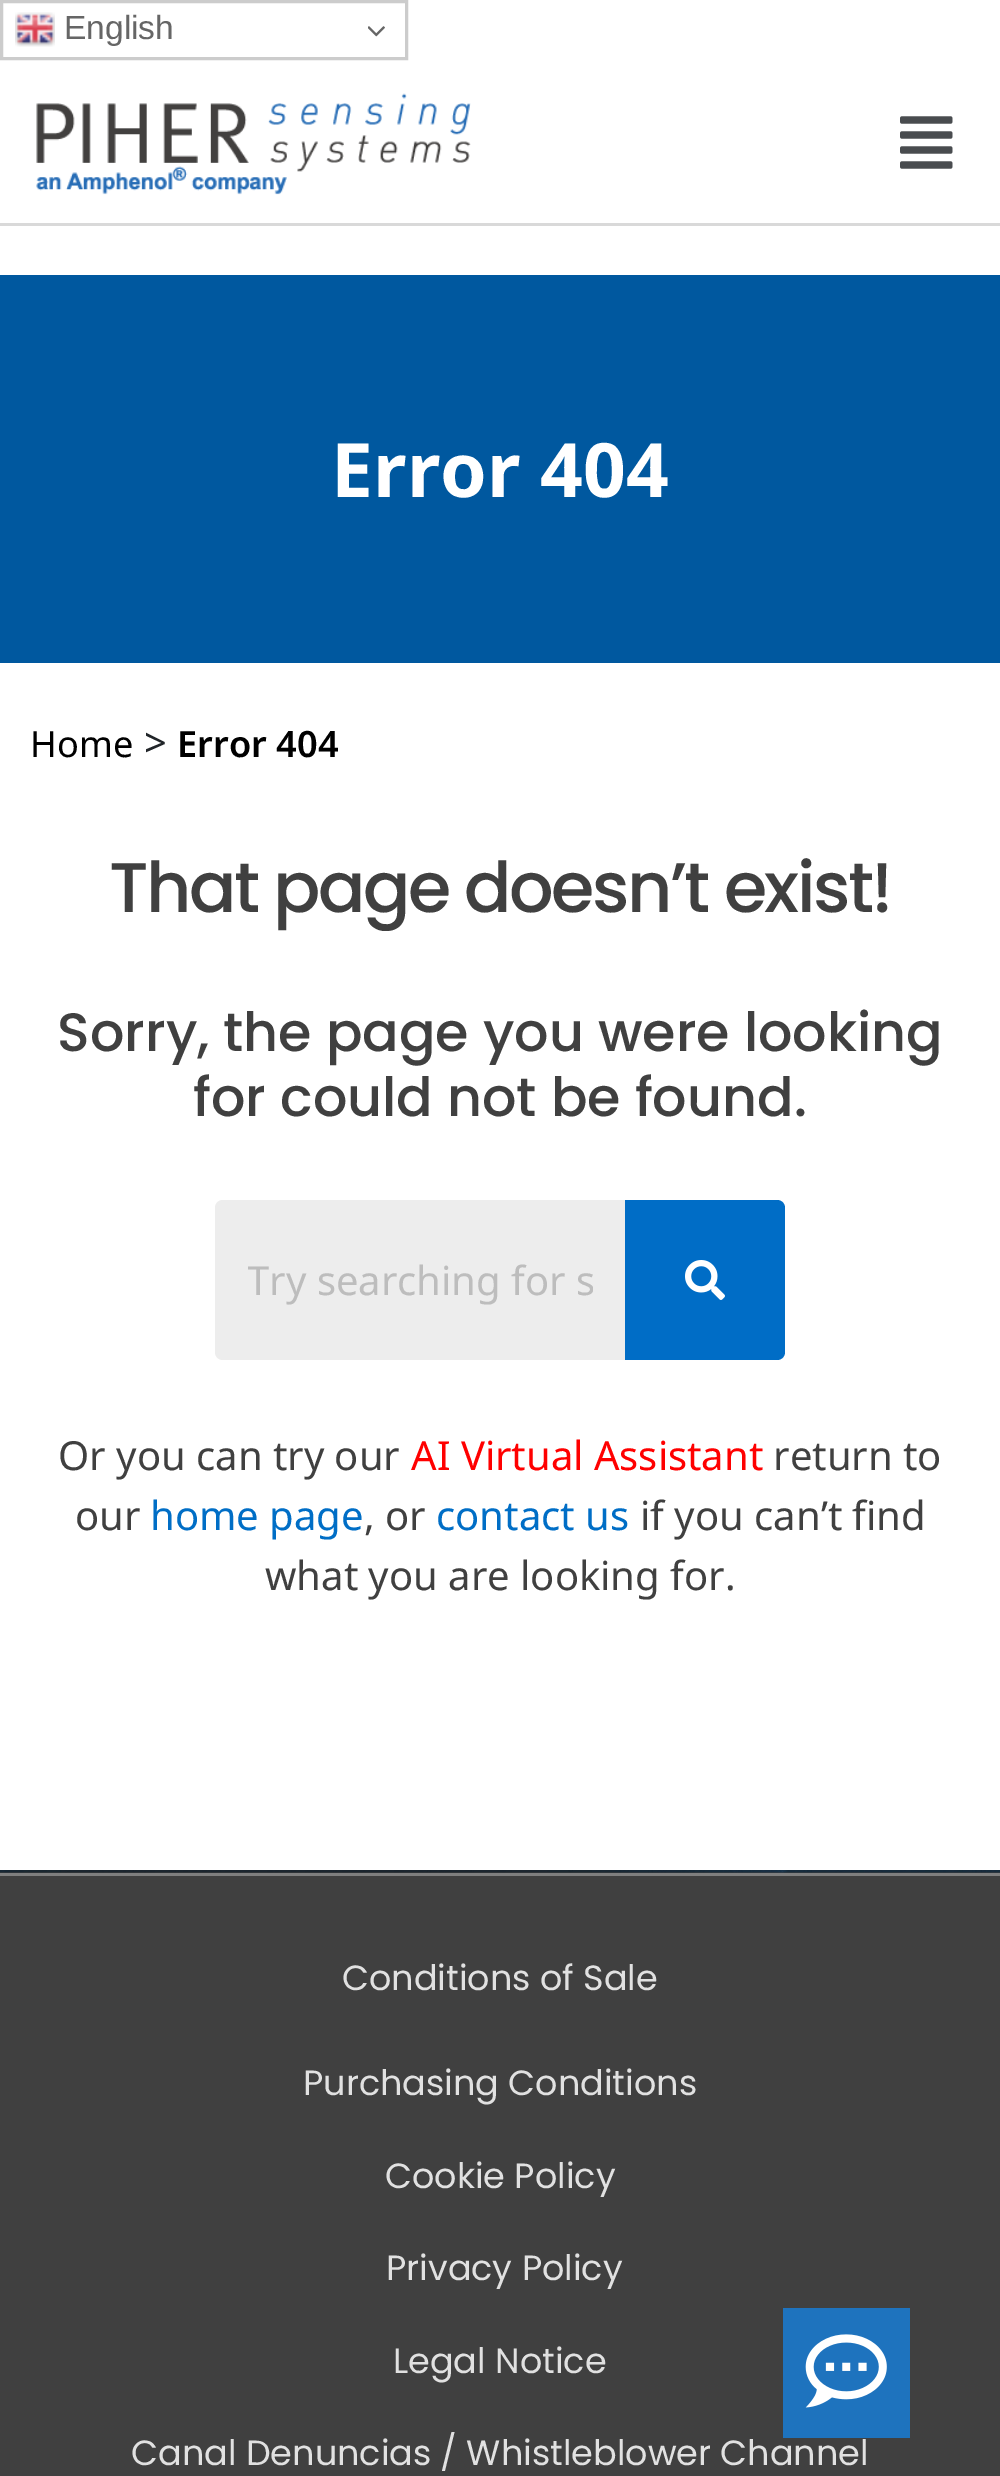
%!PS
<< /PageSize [1000 2476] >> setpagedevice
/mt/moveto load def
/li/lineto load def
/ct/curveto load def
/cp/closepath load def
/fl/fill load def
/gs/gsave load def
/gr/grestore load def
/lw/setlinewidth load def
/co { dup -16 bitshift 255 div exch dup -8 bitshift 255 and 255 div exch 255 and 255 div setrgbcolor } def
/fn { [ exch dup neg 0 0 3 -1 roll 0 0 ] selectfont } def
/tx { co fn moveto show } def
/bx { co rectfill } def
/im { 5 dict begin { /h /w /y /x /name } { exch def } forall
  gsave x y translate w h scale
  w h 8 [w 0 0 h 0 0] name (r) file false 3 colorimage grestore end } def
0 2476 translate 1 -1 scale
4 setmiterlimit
0 0 1000 2476 16#FFFFFF bx
16#CCCCCC co
3 lw
1.5 1.5 405 57 rectstroke
(media/1.raw) 15 12 40 35 im
(media/2.raw) 368 26 17 11 im
0 223 1000 3 16#D9D9D9 bx
(media/3.raw) 36 93 435 102 im
(media/4.raw) 900 116 53 53 im
0 275 1000 388 16#00589F bx
16#EDEDED co
223 1200 mt 625 1200 li 625 1360 li 223 1360 li 218.5 1360 215 1356.5 215 1352 ct 215 1208 li 215 1203.5 218.5 1200 223 1200 ct cp fl
16#006DC6 co
625 1200 mt 777 1200 li 781.5 1200 785 1203.5 785 1208 ct 785 1352 li 785 1356.5 781.5 1360 777 1360 ct 625 1360 li cp fl
(media/5.raw) 685 1260 40 40 im
0 1872 1000 1 16#404040 bx
(media/6.raw) 0 1870 1000 3 im
0 1876 1000 600 16#404040 bx
0 1873 1000 3 16#7F7F7F bx
(English) 64 39 /LiberationSans-Regular 33.5 16#666666 tx
(Error 404) 331 497 /NotoSans-Bold 75 16#FFFFFF tx
(Home) 30 757 /NotoSans-Regular 36.25 16#000000 tx
(>) 144 757 /NotoSans-Regular 40 16#212529 tx
(Error 404) 177 757 /NotoSans-SemiBold 36.25 16#000000 tx
/Poppins-Medium 70 fn
16#404040 co
109 912 mt -2.5 0 (That page doesn’t exist!) ashow
(Sorry, the page you were looking) 57 1051 /Poppins-Medium 54 16#404040 tx
(for could not be found.) 193 1116 /Poppins-Medium 54 16#404040 tx
gs
248 1253 345 55 rectclip
(Try searching for s) 247 1295 /NotoSans-Regular 40 16#BDBDBD tx
gr
(Or you can try our) 58 1470 /NotoSans-Regular 40 16#404040 tx
(AI Virtual Assistant) 411 1470 /NotoSans-Regular 40 16#FF0000 tx
(return to) 773 1470 /NotoSans-Regular 40 16#404040 tx
(our) 75 1530 /NotoSans-Regular 40 16#404040 tx
(home page) 150 1530 /NotoSans-Regular 40 16#006EC6 tx
(, or) 364 1530 /NotoSans-Regular 40 16#404040 tx
(contact us) 436 1530 /NotoSans-Regular 40 16#006EC6 tx
(if you can’t find) 640 1530 /NotoSans-Regular 40 16#404040 tx
(what you are looking for.) 265 1590 /NotoSans-Regular 40 16#404040 tx
(Conditions of Sale) 342 1990 /Poppins-Regular 35 16#E1E1E1 tx
(Purchasing Conditions) 303 2095 /Poppins-Regular 35 16#E1E1E1 tx
(Cookie Policy) 385 2188 /Poppins-Regular 35 16#E1E1E1 tx
(Privacy Policy) 386 2280 /Poppins-Regular 35 16#E1E1E1 tx
(Legal Notice) 393 2373 /Poppins-Regular 35 16#E1E1E1 tx
(Canal Denuncias / Whistleblower Channel) 131 2465 /Poppins-Regular 35 16#E1E1E1 tx
783 2308 127 130 16#1E73BE bx
(media/7.raw) 805 2334 82 74 im
showpage
